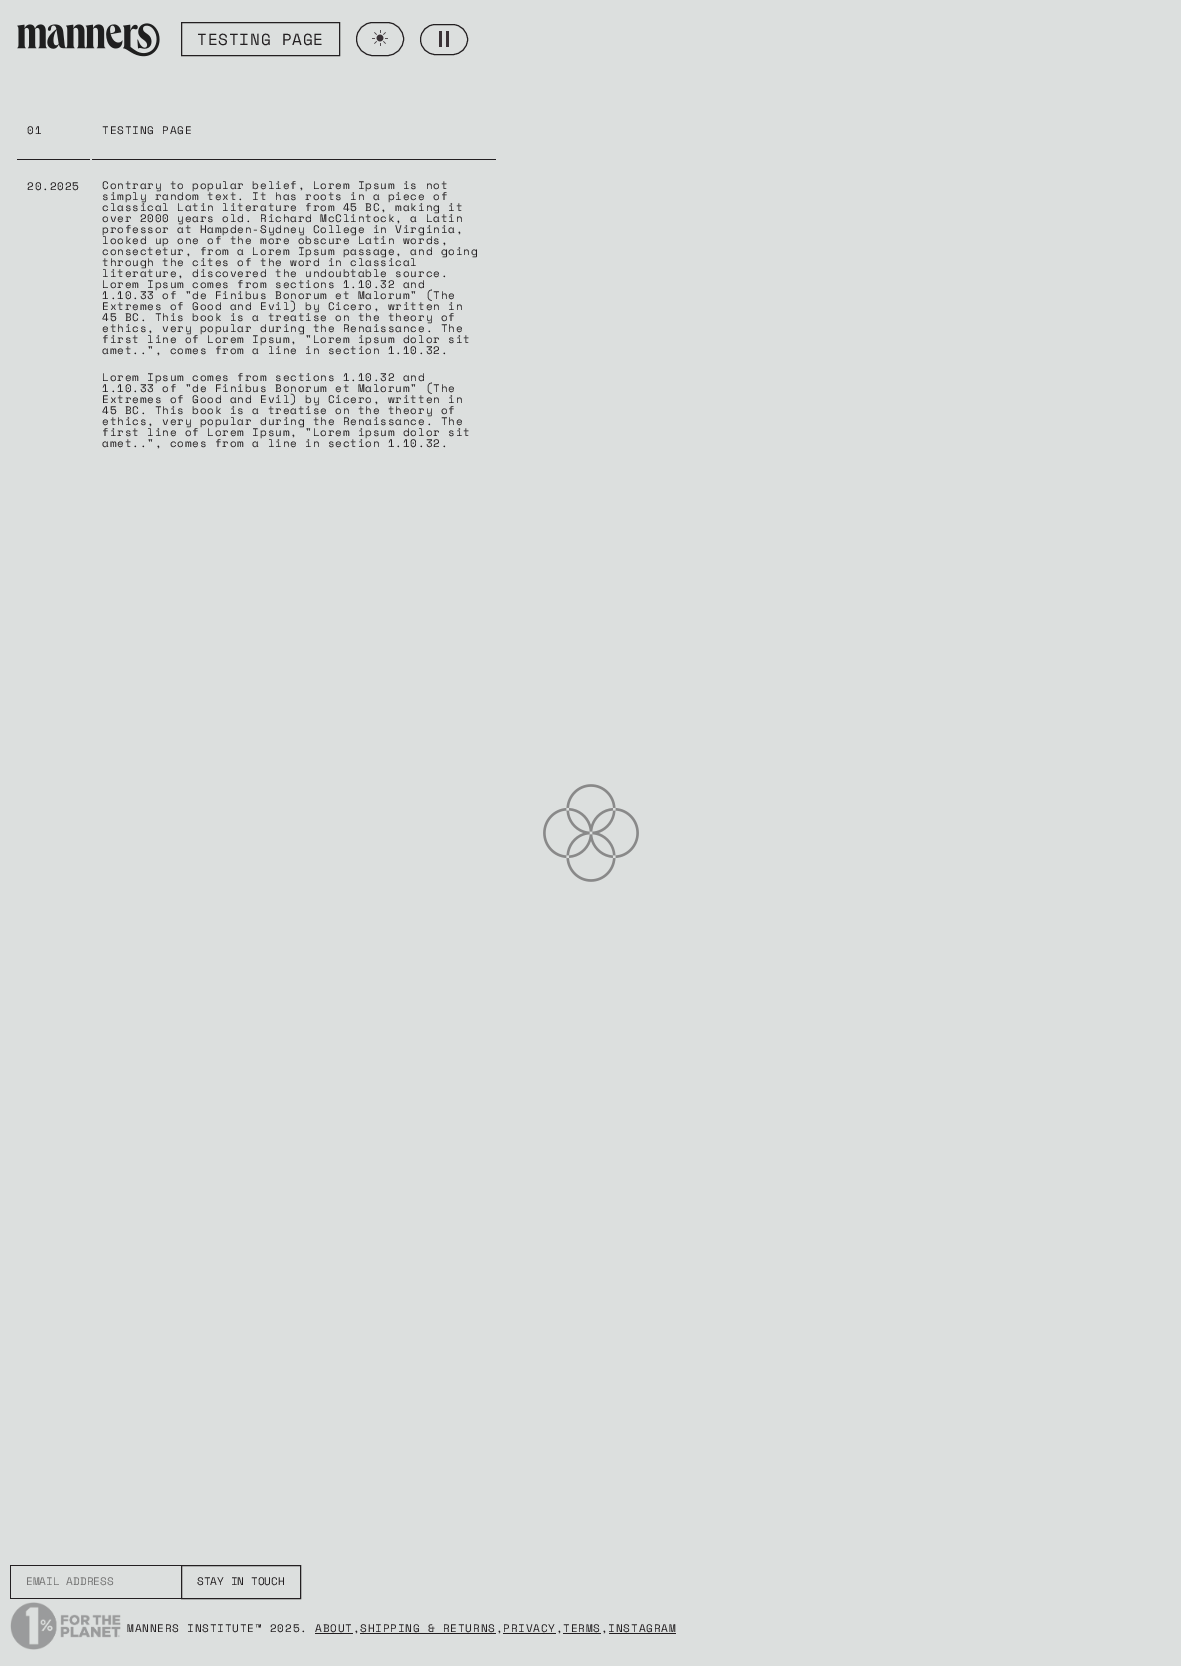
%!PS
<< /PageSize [1181 1666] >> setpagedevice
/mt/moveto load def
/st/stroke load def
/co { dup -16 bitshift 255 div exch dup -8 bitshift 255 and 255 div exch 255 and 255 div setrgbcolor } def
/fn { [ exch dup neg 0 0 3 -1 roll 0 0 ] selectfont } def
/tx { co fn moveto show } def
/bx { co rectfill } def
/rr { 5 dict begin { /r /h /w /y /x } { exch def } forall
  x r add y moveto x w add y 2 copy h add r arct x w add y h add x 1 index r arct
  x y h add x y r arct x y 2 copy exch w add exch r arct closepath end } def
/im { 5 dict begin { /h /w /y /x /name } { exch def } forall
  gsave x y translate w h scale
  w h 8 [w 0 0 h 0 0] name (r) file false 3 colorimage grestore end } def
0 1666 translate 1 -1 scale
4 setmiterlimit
0 0 1181 1666 16#DCDFDE bx
(media/1.raw) 17 23 143 34 im
16#231F21 co
181.5 22.5 158 33 rectstroke
356.5 22.5 47 33 16.5 rr st
(media/2.raw) 372 30 16 16 im
420.5 24.5 47 30 15 rr st
439 31 3 16 16#3A3236 bx
446 31 3 16 16#3A3236 bx
17 159 73 1 16#231F21 bx
92 159 404 1 16#231F21 bx
(media/3.raw) 543 784 96 98 im
10 1565 171 1 16#231F21 bx
10 1598 171 1 16#231F21 bx
10 1565 1 34 16#231F21 bx
181.5 1565.5 119 33 rectstroke
(media/4.raw) 10 1602 111 48 im
315 1633 38 1 16#231F21 bx
360 1633 136 1 16#231F21 bx
503 1633 53 1 16#231F21 bx
563 1633 38 1 16#231F21 bx
609 1633 67 1 16#231F21 bx
/SpaceMono-Regular 16 fn
197 45 mt .8 0 (TESTING PAGE) ashow
/SpaceMono-Regular 11 fn
27 134 mt .8 0 (01) ashow
102 134 mt .8 0 (TESTING PAGE) ashow
27 190 mt .8 0 (20.2025) ashow
102 189 mt .8 0 (Contrary to popular belief, Lorem Ipsum is not) ashow
102 200 mt .8 0 (simply random text. It has roots in a piece of) ashow
102 211 mt .8 0 (classical Latin literature from 45 BC, making it) ashow
102 222 mt .8 0 (over 2000 years old. Richard McClintock, a Latin) ashow
102 233 mt .8 0 (professor at Hampden-Sydney College in Virginia,) ashow
102 244 mt .8 0 (looked up one of the more obscure Latin words,) ashow
102 255 mt .8 0 (consectetur, from a Lorem Ipsum passage, and going) ashow
102 266 mt .8 0 (through the cites of the word in classical) ashow
102 277 mt .8 0 (literature, discovered the undoubtable source.) ashow
102 288 mt .8 0 (Lorem Ipsum comes from sections 1.10.32 and) ashow
102 299 mt .8 0 (1.10.33 of "de Finibus Bonorum et Malorum" \(The) ashow
102 310 mt .8 0 (Extremes of Good and Evil\) by Cicero, written in) ashow
102 321 mt .8 0 (45 BC. This book is a treatise on the theory of) ashow
102 332 mt .8 0 (ethics, very popular during the Renaissance. The) ashow
102 343 mt .8 0 (first line of Lorem Ipsum, "Lorem ipsum dolor sit) ashow
102 354 mt .8 0 (amet..", comes from a line in section 1.10.32.) ashow
102 381 mt .8 0 (Lorem Ipsum comes from sections 1.10.32 and) ashow
102 392 mt .8 0 (1.10.33 of "de Finibus Bonorum et Malorum" \(The) ashow
102 403 mt .8 0 (Extremes of Good and Evil\) by Cicero, written in) ashow
102 414 mt .8 0 (45 BC. This book is a treatise on the theory of) ashow
102 425 mt .8 0 (ethics, very popular during the Renaissance. The) ashow
102 436 mt .8 0 (first line of Lorem Ipsum, "Lorem ipsum dolor sit) ashow
102 447 mt .8 0 (amet..", comes from a line in section 1.10.32.) ashow
(EMAIL ADDRESS) 26 1585 /SpaceMono-Regular 11 16#757575 tx
(STAY IN TOUCH) 197 1585 /SpaceMono-Regular 11 16#231F21 tx
127 1632 mt .8 0 (MANNERS INSTITUTE™ 2025.) ashow
315 1632 mt .8 0 (ABOUT,SHIPPING & RETURNS,PRIVACY,TERMS,INSTAGRAM) ashow
showpage
